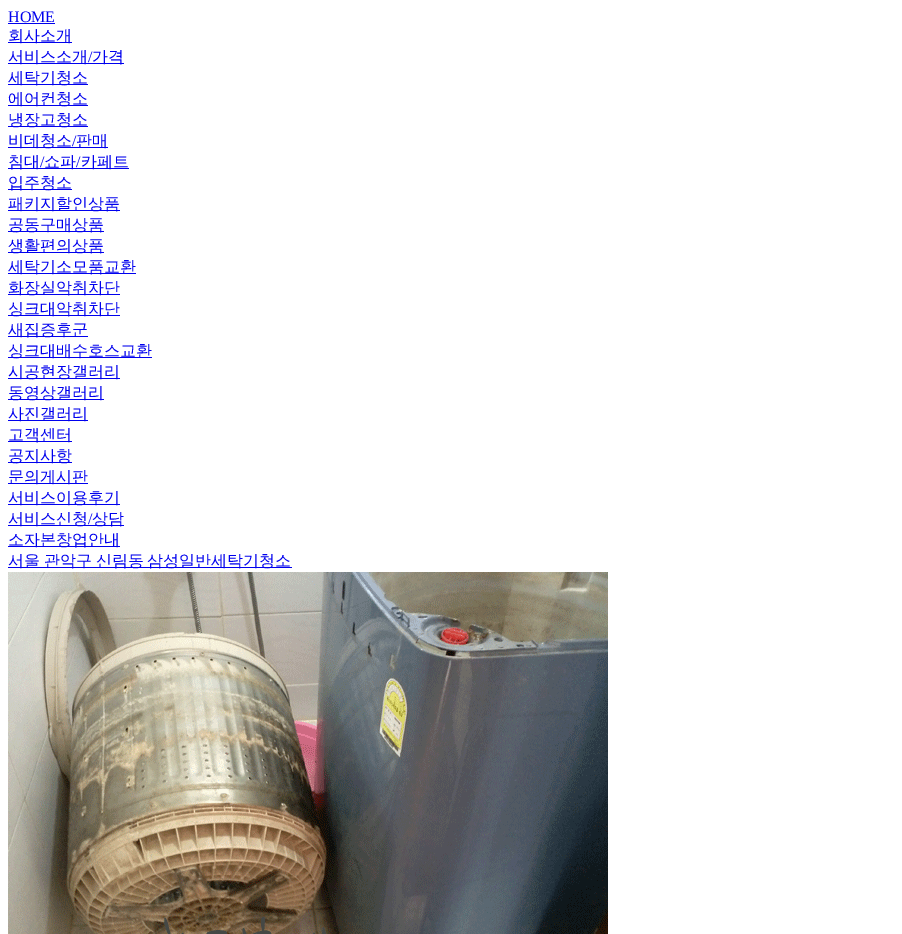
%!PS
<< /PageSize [902 934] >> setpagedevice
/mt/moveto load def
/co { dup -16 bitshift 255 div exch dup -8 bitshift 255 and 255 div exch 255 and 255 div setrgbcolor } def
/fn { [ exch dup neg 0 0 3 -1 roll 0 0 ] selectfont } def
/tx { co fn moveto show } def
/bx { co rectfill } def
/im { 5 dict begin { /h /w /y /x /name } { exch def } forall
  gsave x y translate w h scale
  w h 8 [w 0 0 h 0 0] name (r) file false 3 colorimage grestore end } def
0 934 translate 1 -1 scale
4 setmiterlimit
0 0 902 934 16#FFFFFF bx
8 23 47 1 16#0000EE bx
8 42 64 1 16#0000EE bx
8 63 116 1 16#0000EE bx
8 84 80 1 16#0000EE bx
8 105 80 1 16#0000EE bx
8 126 80 1 16#0000EE bx
8 147 100 1 16#0000EE bx
8 168 121 1 16#0000EE bx
8 189 64 1 16#0000EE bx
8 210 112 1 16#0000EE bx
8 231 96 1 16#0000EE bx
8 252 96 1 16#0000EE bx
8 273 128 1 16#0000EE bx
8 294 112 1 16#0000EE bx
8 315 112 1 16#0000EE bx
8 336 80 1 16#0000EE bx
8 357 144 1 16#0000EE bx
8 378 112 1 16#0000EE bx
8 399 96 1 16#0000EE bx
8 420 80 1 16#0000EE bx
8 441 64 1 16#0000EE bx
8 462 64 1 16#0000EE bx
8 483 80 1 16#0000EE bx
8 504 112 1 16#0000EE bx
8 525 116 1 16#0000EE bx
8 546 112 1 16#0000EE bx
8 567 284 1 16#0000EE bx
(media/1.raw) 8 572 600 362 im
(HOME) 8 22 /LiberationSerif-Regular 16 16#0000EE tx
(회사소개) 8 41 /WenQuanYiZenHei-Medium 16 16#0000EE tx
(서비스소개) 8 62 /WenQuanYiZenHei-Medium 16 16#0000EE tx
(/) 88 62 /LiberationSerif-Regular 16 16#0000EE tx
(가격) 92 62 /WenQuanYiZenHei-Medium 16 16#0000EE tx
(세탁기청소) 8 83 /WenQuanYiZenHei-Medium 16 16#0000EE tx
(에어컨청소) 8 104 /WenQuanYiZenHei-Medium 16 16#0000EE tx
(냉장고청소) 8 125 /WenQuanYiZenHei-Medium 16 16#0000EE tx
(비데청소) 8 146 /WenQuanYiZenHei-Medium 16 16#0000EE tx
(/) 72 146 /LiberationSerif-Regular 16 16#0000EE tx
(판매) 76 146 /WenQuanYiZenHei-Medium 16 16#0000EE tx
(침대) 8 167 /WenQuanYiZenHei-Medium 16 16#0000EE tx
(/) 40 167 /LiberationSerif-Regular 16 16#0000EE tx
(쇼파) 44 167 /WenQuanYiZenHei-Medium 16 16#0000EE tx
(/) 76 167 /LiberationSerif-Regular 16 16#0000EE tx
(카페트) 81 167 /WenQuanYiZenHei-Medium 16 16#0000EE tx
(입주청소) 8 188 /WenQuanYiZenHei-Medium 16 16#0000EE tx
(패키지할인상품) 8 209 /WenQuanYiZenHei-Medium 16 16#0000EE tx
(공동구매상품) 8 230 /WenQuanYiZenHei-Medium 16 16#0000EE tx
(생활편의상품) 8 251 /WenQuanYiZenHei-Medium 16 16#0000EE tx
(세탁기소모품교환) 8 272 /WenQuanYiZenHei-Medium 16 16#0000EE tx
(화장실악취차단) 8 293 /WenQuanYiZenHei-Medium 16 16#0000EE tx
(싱크대악취차단) 8 314 /WenQuanYiZenHei-Medium 16 16#0000EE tx
(새집증후군) 8 335 /WenQuanYiZenHei-Medium 16 16#0000EE tx
(싱크대배수호스교환) 8 356 /WenQuanYiZenHei-Medium 16 16#0000EE tx
(시공현장갤러리) 8 377 /WenQuanYiZenHei-Medium 16 16#0000EE tx
(동영상갤러리) 8 398 /WenQuanYiZenHei-Medium 16 16#0000EE tx
(사진갤러리) 8 419 /WenQuanYiZenHei-Medium 16 16#0000EE tx
(고객센터) 8 440 /WenQuanYiZenHei-Medium 16 16#0000EE tx
(공지사항) 8 461 /WenQuanYiZenHei-Medium 16 16#0000EE tx
(문의게시판) 8 482 /WenQuanYiZenHei-Medium 16 16#0000EE tx
(서비스이용후기) 8 503 /WenQuanYiZenHei-Medium 16 16#0000EE tx
(서비스신청) 8 524 /WenQuanYiZenHei-Medium 16 16#0000EE tx
(/) 88 524 /LiberationSerif-Regular 16 16#0000EE tx
(상담) 92 524 /WenQuanYiZenHei-Medium 16 16#0000EE tx
(소자본창업안내) 8 545 /WenQuanYiZenHei-Medium 16 16#0000EE tx
8 566 mt -1 0 32 (서울 관악구 신림동 삼성일반세탁기청소) widthshow
showpage
